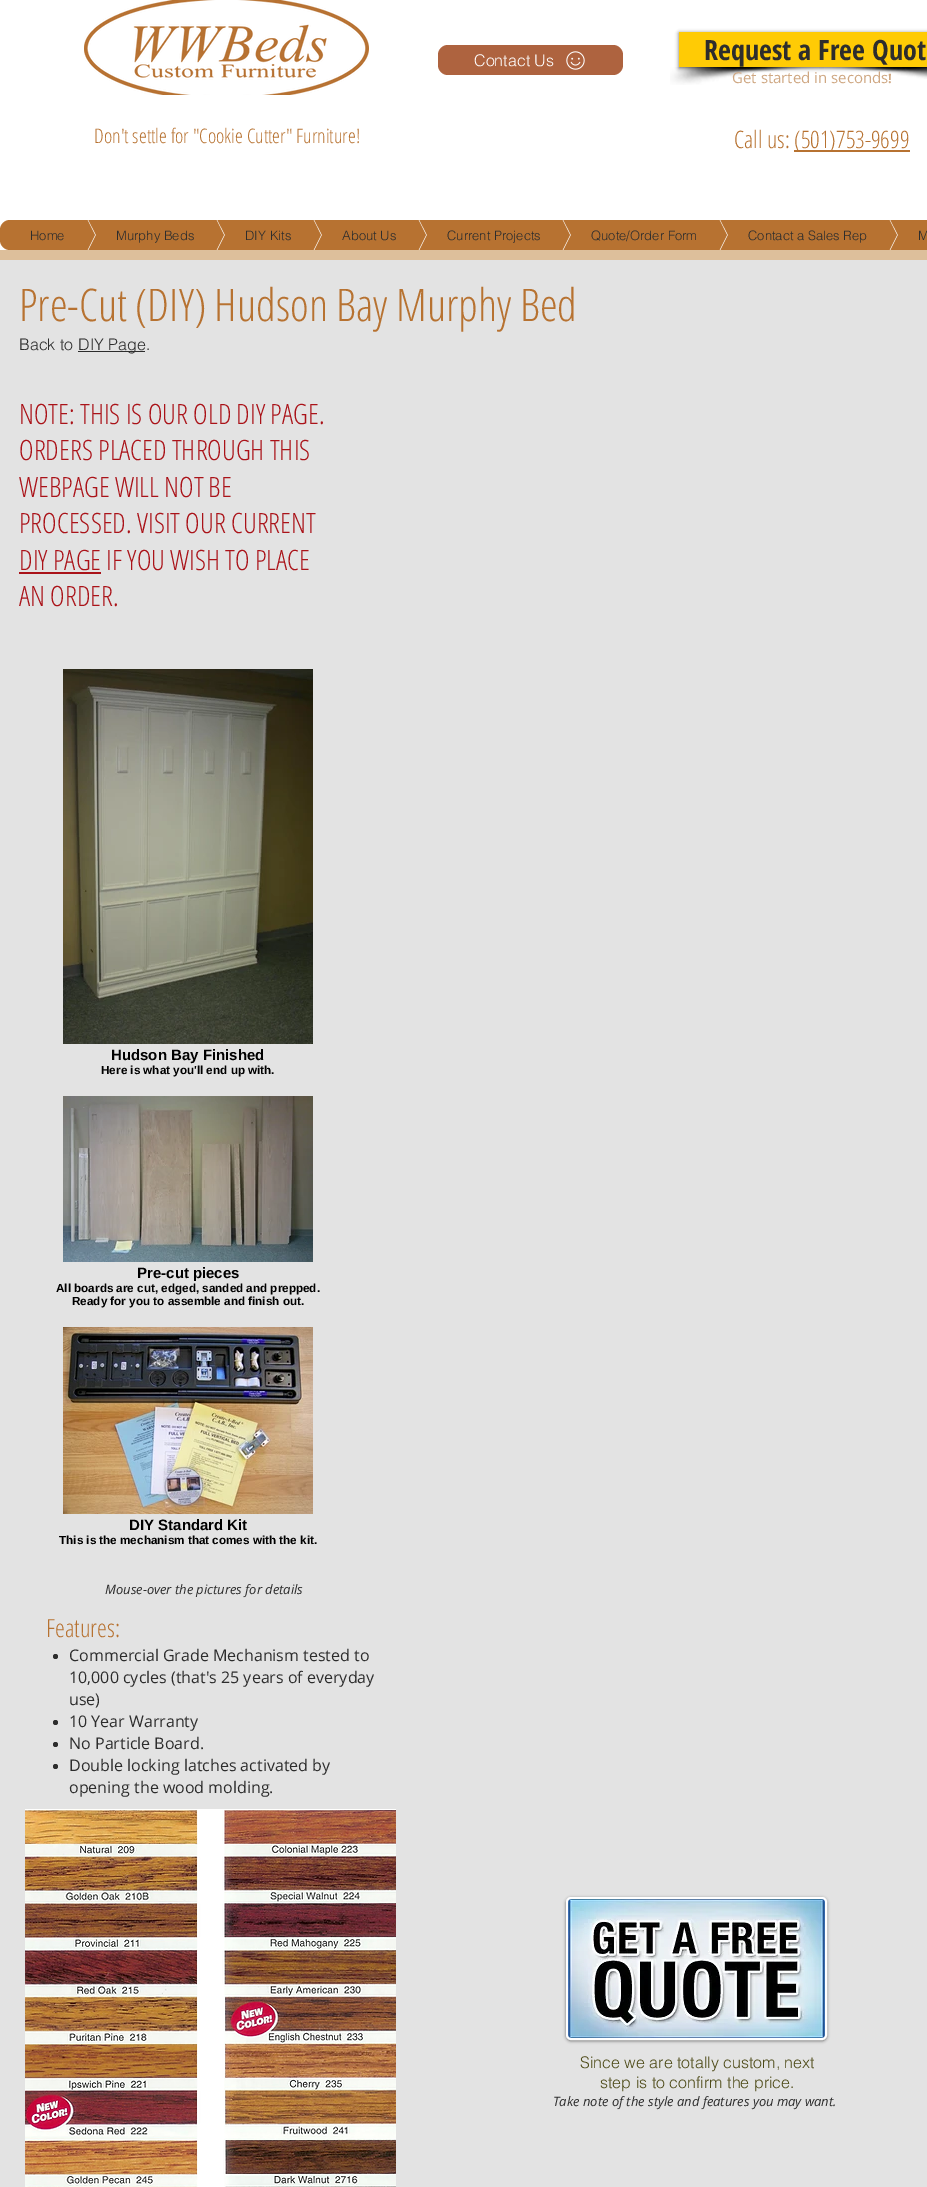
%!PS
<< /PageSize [927 2187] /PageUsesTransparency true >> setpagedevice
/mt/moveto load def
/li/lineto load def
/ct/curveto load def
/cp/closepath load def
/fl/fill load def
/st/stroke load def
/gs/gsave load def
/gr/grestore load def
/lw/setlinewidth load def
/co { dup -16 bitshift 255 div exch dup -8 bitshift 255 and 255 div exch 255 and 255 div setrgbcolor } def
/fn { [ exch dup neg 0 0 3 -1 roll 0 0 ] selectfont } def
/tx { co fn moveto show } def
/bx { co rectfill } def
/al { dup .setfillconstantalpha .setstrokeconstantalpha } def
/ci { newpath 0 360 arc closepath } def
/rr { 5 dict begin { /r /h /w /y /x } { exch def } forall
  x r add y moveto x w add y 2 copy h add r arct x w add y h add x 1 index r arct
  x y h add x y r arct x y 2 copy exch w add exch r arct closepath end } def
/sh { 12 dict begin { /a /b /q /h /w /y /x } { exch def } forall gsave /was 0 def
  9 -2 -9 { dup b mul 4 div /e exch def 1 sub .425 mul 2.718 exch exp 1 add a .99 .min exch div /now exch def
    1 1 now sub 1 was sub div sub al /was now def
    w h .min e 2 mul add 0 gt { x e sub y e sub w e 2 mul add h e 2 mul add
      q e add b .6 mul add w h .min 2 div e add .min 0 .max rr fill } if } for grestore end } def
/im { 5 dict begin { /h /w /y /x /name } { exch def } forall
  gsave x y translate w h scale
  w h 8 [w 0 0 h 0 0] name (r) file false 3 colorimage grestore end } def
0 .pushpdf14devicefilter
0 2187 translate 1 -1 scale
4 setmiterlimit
0 0 927 2187 16#E3E3E3 bx
0 0 927 250 16#FFFFFF bx
0 250 927 10 16#DDBF9B bx
(media/1.raw) 84 0 285 95 im
16#AE633F co
438 45 185 30 10 rr fl
(media/2.raw) 566 51 19 19 im
(media/3.raw) 670 67 154 18 im
(media/4.raw) 819 67 108 12 im
16#000000 co
679 33 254 35 0 2 .6 sh
679 32 248 35 16#FFCB05 bx
794 150 116 2 16#B77231 bx
10 220 mt 25 220 li 25 250 li 10 250 li 4.5 250 0 245.5 0 240 ct 0 230 li 0 224.5 4.5 220 10 220 ct cp fl
gs
25 220 70 30 rectclip
95 235 mt 25 235 li 25 95 li cp fl
25 235 mt 95 235 li 25 375 li cp fl
gr
gs
26 220 70 30 rectclip
26 95 mt 96 95 li 96 235 li cp 96 375 mt 26 375 li 96 235 li cp fl
gr
96 220 58 30 16#B77231 bx
gs
154 220 70 30 rectclip
224 235 mt 154 235 li 154 95 li cp fl
154 235 mt 224 235 li 154 375 li cp fl
gr
gs
155 220 70 30 rectclip
155 95 mt 225 95 li 225 235 li cp 225 375 mt 155 375 li 225 235 li cp fl
gr
225 220 26 30 16#B77231 bx
gs
251 220 70 30 rectclip
321 235 mt 251 235 li 251 95 li cp fl
251 235 mt 321 235 li 251 375 li cp fl
gr
gs
252 220 70 30 rectclip
252 95 mt 322 95 li 322 235 li cp 322 375 mt 252 375 li 322 235 li cp fl
gr
322 220 34 30 16#B77231 bx
gs
356 220 70 30 rectclip
426 235 mt 356 235 li 356 95 li cp fl
356 235 mt 426 235 li 356 375 li cp fl
gr
gs
357 220 70 30 rectclip
357 95 mt 427 95 li 427 235 li cp 427 375 mt 357 375 li 427 235 li cp fl
gr
427 220 73 30 16#B77231 bx
gs
500 220 70 30 rectclip
570 235 mt 500 235 li 500 95 li cp fl
500 235 mt 570 235 li 500 375 li cp fl
gr
gs
501 220 70 30 rectclip
501 95 mt 571 95 li 571 235 li cp 571 375 mt 501 375 li 571 235 li cp fl
gr
571 220 86 30 16#B77231 bx
gs
657 220 70 30 rectclip
727 235 mt 657 235 li 657 95 li cp fl
657 235 mt 727 235 li 657 375 li cp fl
gr
gs
658 220 70 30 rectclip
658 95 mt 728 95 li 728 235 li cp 728 375 mt 658 375 li 728 235 li cp fl
gr
728 220 99 30 16#B77231 bx
gs
827 220 70 30 rectclip
897 235 mt 827 235 li 827 95 li cp fl
827 235 mt 897 235 li 827 375 li cp fl
gr
gs
828 220 70 30 rectclip
828 95 mt 898 95 li 898 235 li cp 898 375 mt 828 375 li 898 235 li cp fl
gr
898 220 29 30 16#B77231 bx
78 351 67 1 16#2D2D2D bx
19 572 82 2 16#AA1319 bx
(media/5.raw) 63 669 250 375 im
(media/6.raw) 63 1096 250 166 im
(media/7.raw) 63 1327 250 187 im
16#2D2D2D co
55.5 1656.5 2.5 ci fl
55.5 1722.5 2.5 ci fl
55.5 1744.5 2.5 ci fl
55.5 1766.5 2.5 ci fl
(media/8.raw) 25 1809 371 378 im
16#000000 co
566 1898 261 143 5 1.5 .5 sh
16#FFFFFF co
567 1898 259 141 4 rr gs fl gr
2 lw
st
(media/9.raw) 568 1899 257 139 im
(Contact Us) 474 66 /helvetica-Light 16 16#FFFFFF tx
(Request a Free Quot) 704 60 /OpenSansCondensed-Bold 28 16#2D2D2D tx
(Get started in seconds) 732 83 /OpenSans-Regular 15 16#CFA883 tx
(!) 888 83 /OpenSans-Bold 13 16#CFA883 tx
(Don't settle for "Cookie Cutter" Furniture!) 94 143 /OpenSansCondensed-Light 20 16#B77231 tx
(Call us:) 734 148 /OpenSansCondensed-Light 24 16#B77231 tx
(\(501\)753-9699) 794 148 /OpenSansCondensed-Light 24 16#B77231 tx
(Home) 30 240 /helvetica-Light 13 16#2D2D2D tx
(Murphy Beds) 116 240 /helvetica-Light 13 16#2D2D2D tx
(DIY Kits) 245 240 /helvetica-Light 13 16#2D2D2D tx
(About Us) 342 240 /helvetica-Light 13 16#2D2D2D tx
(Current Projects) 447 240 /helvetica-Light 13 16#2D2D2D tx
(Quote/Order Form) 591 240 /helvetica-Light 13 16#2D2D2D tx
(Contact a Sales Rep) 748 240 /helvetica-Light 13 16#2D2D2D tx
(M) 918 240 /helvetica-Light 13 16#2D2D2D tx
(Pre-Cut \(DIY\) Hudson Bay Murphy Bed) 19 321 /OpenSansCondensed-Light 45 16#B77231 tx
(Back to) 19 350 /helvetica-Light 16 16#2D2D2D tx
(DIY Page.) 78 350 /helvetica-Light 16 16#2D2D2D tx
(NOTE: THIS IS OUR OLD DIY PAGE.) 19 424 /OpenSansCondensed-Light 28 16#AA1319 tx
(ORDERS PLACED THROUGH THIS) 19 460 /OpenSansCondensed-Light 28 16#AA1319 tx
(WEBPAGE WILL NOT BE) 19 497 /OpenSansCondensed-Light 28 16#AA1319 tx
(PROCESSED. VISIT OUR CURRENT) 19 533 /OpenSansCondensed-Light 28 16#AA1319 tx
(DIY PAGE IF YOU WISH TO PLACE) 19 570 /OpenSansCondensed-Light 28 16#AA1319 tx
(AN ORDER.) 19 606 /OpenSansCondensed-Light 28 16#AA1319 tx
(Hudson Bay Finished) 111 1060 /LiberationSans-Bold 15 16#000000 tx
(Here is what you'll end up with.) 101 1074 /LiberationSans-Bold 11.7 16#000000 tx
(Pre-cut pieces) 137 1278 /LiberationSans-Bold 15 16#000000 tx
(All boards are cut, edged, sanded and prepped.) 56 1292 /LiberationSans-Bold 11.7 16#000000 tx
(Ready for you to assemble and finish out.) 72 1305 /LiberationSans-Bold 11.7 16#000000 tx
(DIY Standard Kit) 129 1530 /LiberationSans-Bold 15 16#000000 tx
(This is the mechanism that comes with the kit.) 59 1544 /LiberationSans-Bold 11.7 16#000000 tx
(Mouse-over the pictures for details) 105 1594 /OpenSans-Italic 13 16#2D2D2D tx
(Features:) 46 1637 /OpenSansCondensed-Light 25 16#B77231 tx
(Commercial Grade Mechanism tested to) 69 1661 /OpenSans-Regular 16 16#2D2D2D tx
(10,000 cycles \(that's 25 years of everyday) 69 1683 /OpenSans-Regular 16 16#2D2D2D tx
(use\)) 69 1705 /OpenSans-Regular 16 16#2D2D2D tx
(10 Year Warranty) 69 1727 /OpenSans-Regular 16 16#2D2D2D tx
(No Particle Board.) 69 1749 /OpenSans-Regular 16 16#2D2D2D tx
(Double locking latches activated by) 69 1771 /OpenSans-Regular 16 16#2D2D2D tx
(opening the wood molding.) 69 1793 /OpenSans-Regular 16 16#2D2D2D tx
(Since we are totally custom, next) 580 2068 /helvetica-Light 16 16#4D4A17 tx
(step is to confirm the price.) 600 2088 /helvetica-Light 16 16#4D4A17 tx
(Take note of the style and features you may want.) 553 2106 /OpenSans-Italic 13 16#2D2D2D tx
.poppdf14devicefilter showpage
